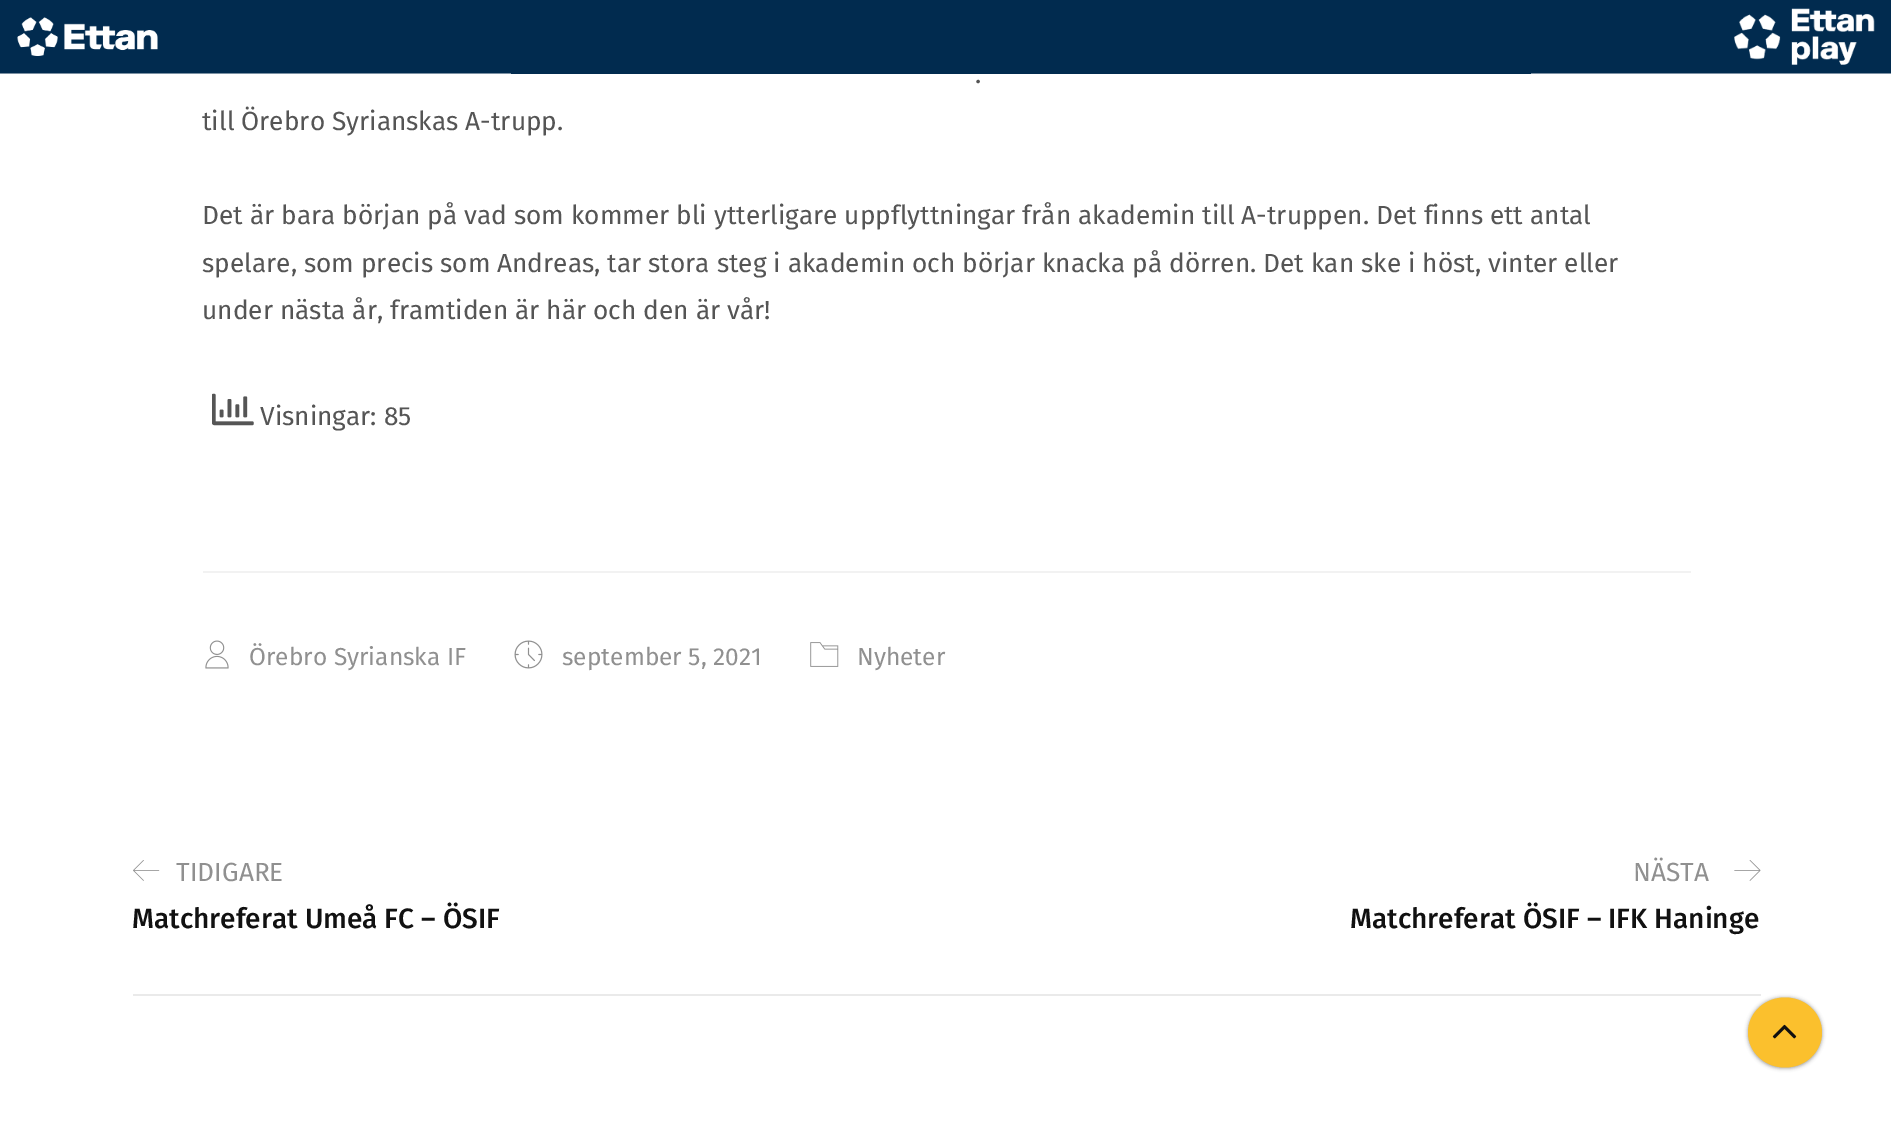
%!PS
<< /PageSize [1891 1136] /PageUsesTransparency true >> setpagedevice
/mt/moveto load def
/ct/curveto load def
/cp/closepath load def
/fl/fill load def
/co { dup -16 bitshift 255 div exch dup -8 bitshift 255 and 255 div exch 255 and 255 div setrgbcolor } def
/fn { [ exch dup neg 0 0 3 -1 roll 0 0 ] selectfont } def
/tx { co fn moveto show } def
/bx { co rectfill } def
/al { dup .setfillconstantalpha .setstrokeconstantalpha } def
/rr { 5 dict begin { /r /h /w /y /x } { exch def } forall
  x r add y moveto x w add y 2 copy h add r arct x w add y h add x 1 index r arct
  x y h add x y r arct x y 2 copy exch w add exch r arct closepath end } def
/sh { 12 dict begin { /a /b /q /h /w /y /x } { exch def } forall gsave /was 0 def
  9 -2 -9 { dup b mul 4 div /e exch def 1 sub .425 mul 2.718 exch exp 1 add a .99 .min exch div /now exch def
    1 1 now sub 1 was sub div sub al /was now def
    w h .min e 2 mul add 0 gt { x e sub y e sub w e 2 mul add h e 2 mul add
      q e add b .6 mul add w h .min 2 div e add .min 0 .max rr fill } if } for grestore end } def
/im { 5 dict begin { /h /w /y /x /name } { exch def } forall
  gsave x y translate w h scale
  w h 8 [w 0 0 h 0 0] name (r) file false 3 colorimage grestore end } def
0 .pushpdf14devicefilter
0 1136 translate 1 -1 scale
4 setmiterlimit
0 0 1891 1136 16#FFFFFF bx
(media/1.raw) 0 0 1891 74 im
(media/2.raw) 212 393 42 33 im
203 571 1488 2 16#F2F2F2 bx
(media/3.raw) 205 640 24 29 im
(media/4.raw) 514 640 29 29 im
(media/5.raw) 810 642 29 25 im
133 994 1628 2 16#EAEAEA bx
(media/6.raw) 133 860 27 21 im
(media/7.raw) 1734 860 27 21 im
16#000000 co
1748 998 74 70 35 2 .4 sh
16#FBC02D co
1785 997.5 mt 1805.5 997.5 1822 1013 1822 1032.5 ct 1822 1052 1805.5 1067.5 1785 1067.5 ct 1764.5 1067.5 1748 1052 1748 1032.5 ct 1748 1013 1764.5 997.5 1785 997.5 ct cp fl
(media/8.raw) 1772 1024 25 15 im
(.) 975 83 /FiraSans-Regular 26.25 16#555555 tx
(till Örebro Syrianskas A-trupp.) 202 130 /FiraSans-Regular 26.25 16#555555 tx
(Det är bara början på vad som kommer bli ytterligare uppflyttningar från akademin till A-truppen. Det finns ett antal) 202 224 /FiraSans-Regular 26.25 16#555555 tx
(spelare, som precis som Andreas, tar stora steg i akademin och börjar knacka på dörren. Det kan ske i höst, vinter eller) 202 272 /FiraSans-Regular 26.25 16#555555 tx
(under nästa år, framtiden är här och den är vår!) 202 319 /FiraSans-Regular 26.25 16#555555 tx
(Visningar: 85) 260 425 /FiraSans-Regular 26.25 16#555555 tx
(Örebro Syrianska IF) 249 665 /FiraSans-Regular 24.5 16#909090 tx
(september 5, 2021) 562 665 /FiraSans-Regular 24.5 16#909090 tx
(Nyheter) 857 665 /FiraSans-Regular 24.5 16#909090 tx
(TIDIGARE) 176 881 /FiraSans-Regular 26.25 16#909090 tx
(Matchreferat Umeå FC – ÖSIF) 132 928 /FiraSans-Medium 28 16#111111 tx
(NÄSTA) 1633 881 /FiraSans-Regular 26.25 16#909090 tx
(Matchreferat ÖSIF – IFK Haninge) 1350 928 /FiraSans-Medium 28 16#111111 tx
.poppdf14devicefilter showpage
